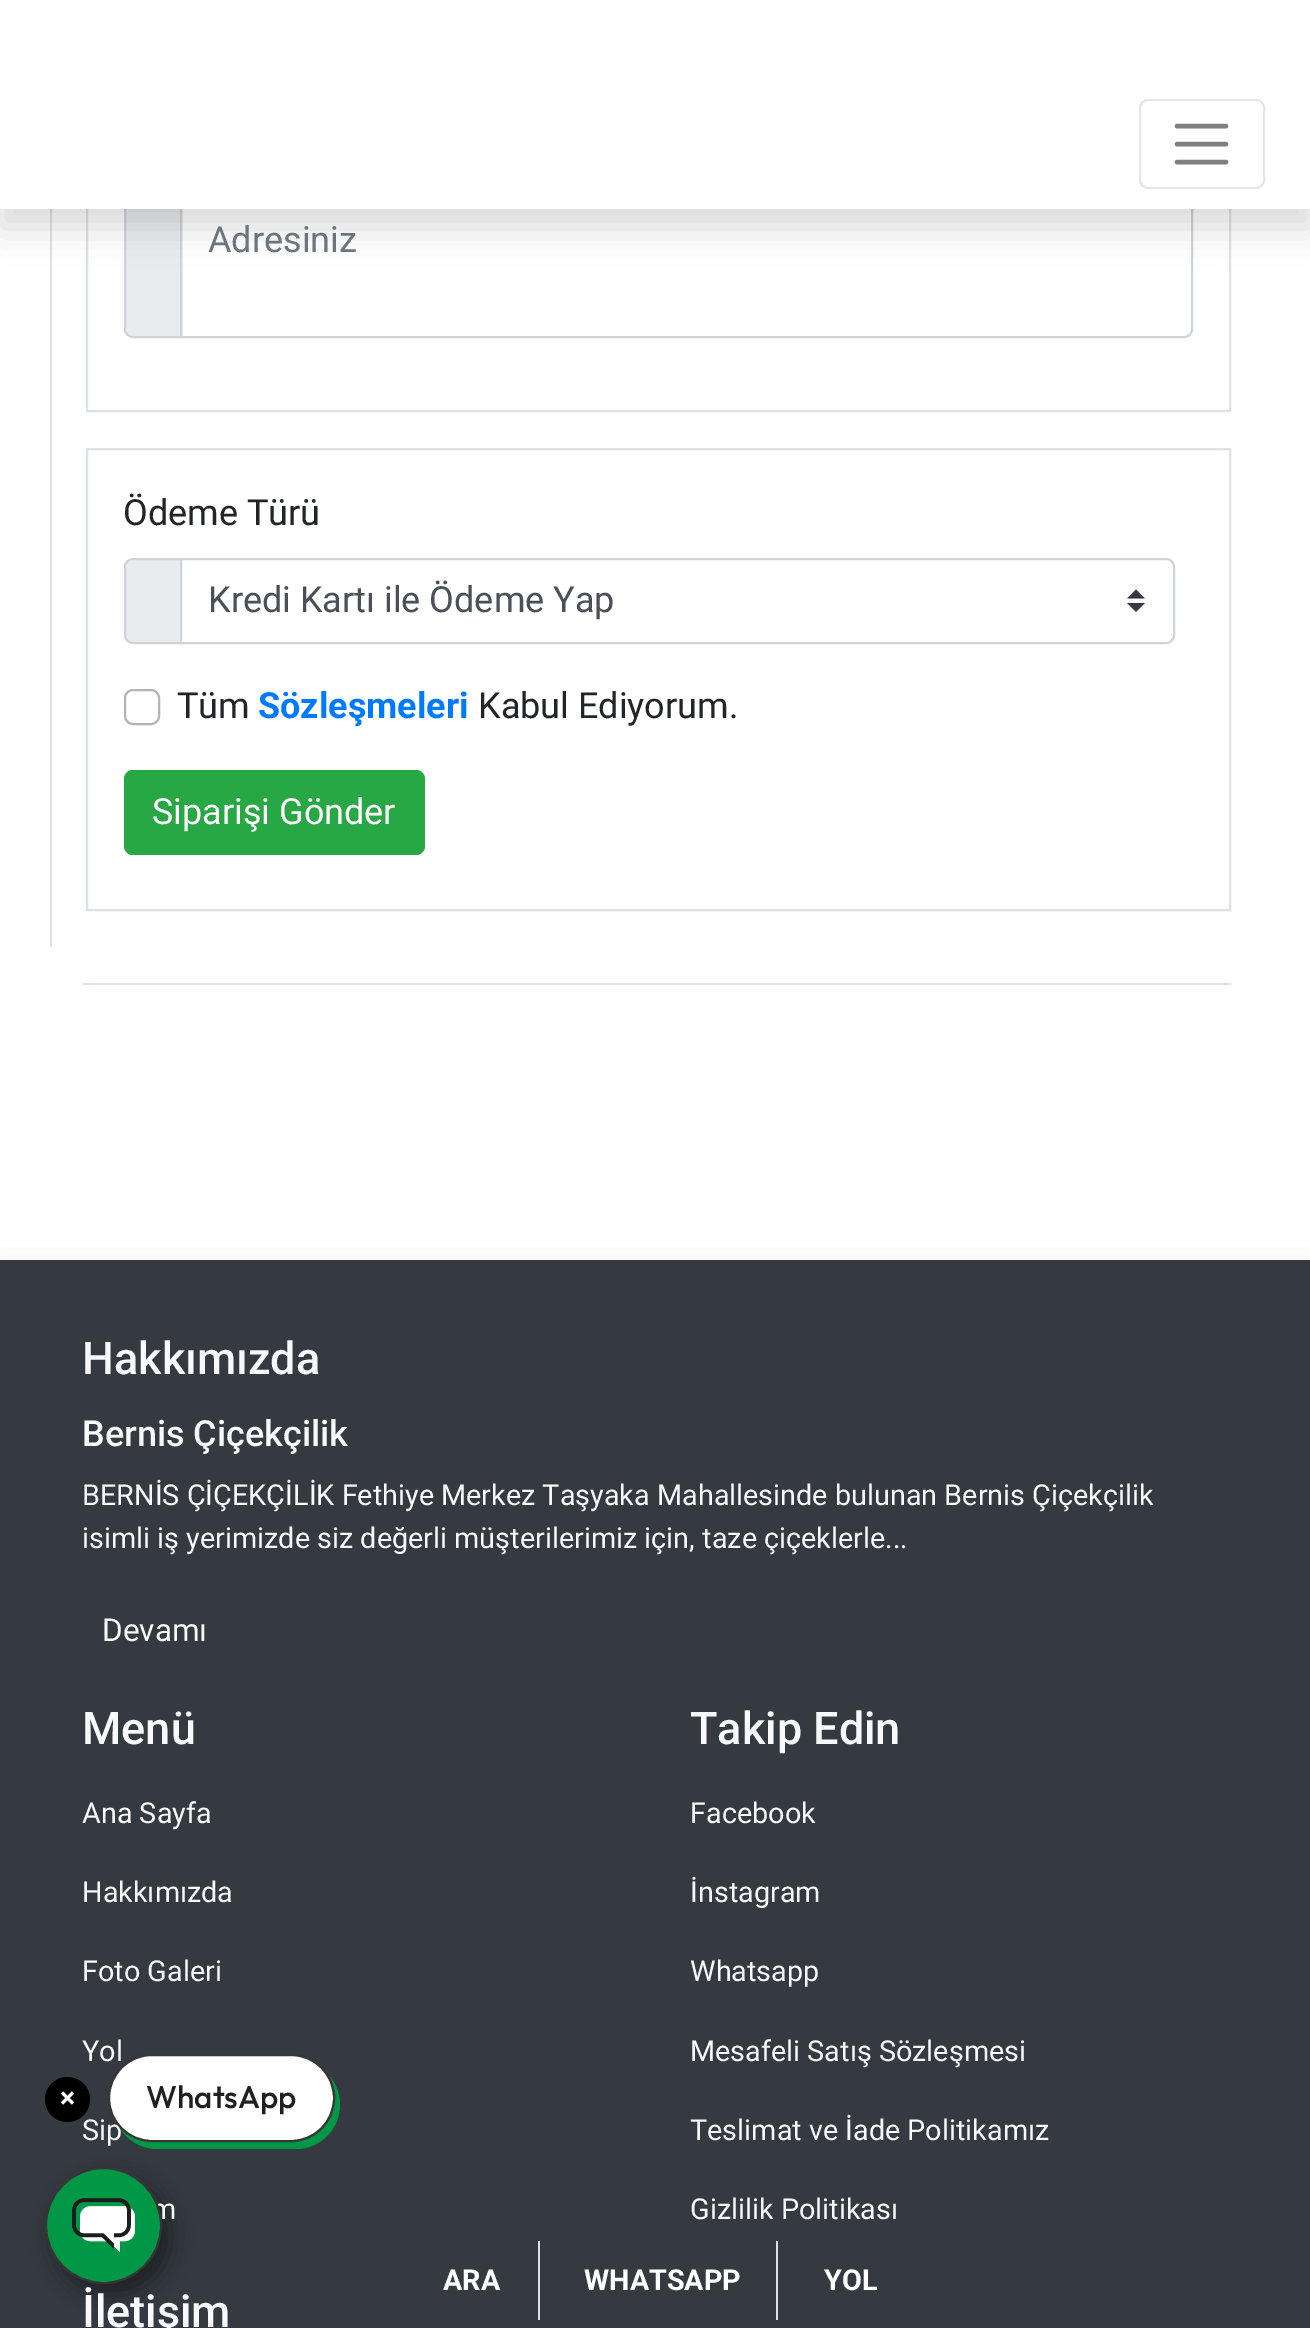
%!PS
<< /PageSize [1310 2328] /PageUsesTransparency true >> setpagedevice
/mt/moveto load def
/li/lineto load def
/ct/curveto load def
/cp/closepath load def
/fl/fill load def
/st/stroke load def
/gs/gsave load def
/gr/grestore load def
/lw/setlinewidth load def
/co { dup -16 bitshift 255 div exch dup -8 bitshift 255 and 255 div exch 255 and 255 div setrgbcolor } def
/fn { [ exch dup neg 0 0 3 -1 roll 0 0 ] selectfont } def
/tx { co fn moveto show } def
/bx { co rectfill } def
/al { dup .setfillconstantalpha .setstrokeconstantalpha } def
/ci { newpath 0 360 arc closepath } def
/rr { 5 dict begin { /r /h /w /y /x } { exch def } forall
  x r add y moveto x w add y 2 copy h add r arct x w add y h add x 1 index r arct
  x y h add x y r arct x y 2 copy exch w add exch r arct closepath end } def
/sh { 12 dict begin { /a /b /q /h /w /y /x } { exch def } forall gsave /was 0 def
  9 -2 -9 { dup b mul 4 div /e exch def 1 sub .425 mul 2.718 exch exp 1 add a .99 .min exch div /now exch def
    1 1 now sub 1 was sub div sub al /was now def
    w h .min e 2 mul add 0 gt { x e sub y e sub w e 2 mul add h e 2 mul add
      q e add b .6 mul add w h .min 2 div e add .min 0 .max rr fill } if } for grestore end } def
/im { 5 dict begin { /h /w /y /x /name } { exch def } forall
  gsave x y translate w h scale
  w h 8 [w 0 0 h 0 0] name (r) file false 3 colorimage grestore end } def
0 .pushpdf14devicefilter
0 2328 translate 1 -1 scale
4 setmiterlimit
0 0 1310 2328 16#FFFFFF bx
50 209 2 738 16#DEE2E6 bx
2 lw
87 -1 1143 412 rectstroke
16#E9ECEF co
133 199 mt 181 199 li 181 337 li 133 337 li 128.5 337 125 333.5 125 329 ct 125 207 li 125 202.5 128.5 199 133 199 ct cp gs fl gr
16#CED4DA co
st
181 199 mt 1184 199 li 1188.5 199 1192 202.5 1192 207 ct 1192 329 li 1192 333.5 1188.5 337 1184 337 ct 181 337 li cp st
16#000000 co
0 18 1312 209 0 18 .15 sh
0 0 1310 209 16#FFFFFF bx
16#E6E6E6 co
1140 100 124 88 8 rr st
16#808080 co
4.5 lw
1 setlinecap
1177 126 mt 1226 126 li 1177 144 mt 1226 144 li 1177 162 mt 1226 162 li st
16#DEE2E6 co
2 lw
0 setlinecap
87 449 1143 461 rectstroke
16#E9ECEF co
133 559 mt 181 559 li 181 643 li 133 643 li 128.5 643 125 639.5 125 635 ct 125 567 li 125 562.5 128.5 559 133 559 ct cp gs fl gr
16#CED4DA co
st
16#FFFFFF co
180 558 mt 1166 558 li 1171 558 1175 562 1175 567 ct 1175 635 li 1175 640 1171 644 1166 644 ct 180 644 li cp fl
16#343A40 co
1136 589.5 mt 1127 598.5 li 1145 598.5 li cp 1136 612 mt 1127 603 li 1145 603 li cp fl
16#CED4DA co
181 559 mt 1166 559 li 1170.5 559 1174 562.5 1174 567 ct 1174 635 li 1174 639.5 1170.5 643 1166 643 ct 181 643 li cp st
16#ADB5BD co
125 690 34 34 8 rr st
16#28A745 co
124 770 301 85 9 rr fl
83 983 1148 2 16#DEE2E6 bx
16#000000 co
0 1278 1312 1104 0 18 .15 sh
0 1260 1310 1068 16#343A40 bx
16#000000 co
54 2178 117 117 58.5 11 .4 sh
538 2241 2 79 16#DEE2E6 bx
776 2241 2 79 16#DEE2E6 bx
(Adresiniz) 208 252 /Roboto-Regular 36 16#6C757D tx
(Ödeme Türü) 123 525 /Roboto-Regular 36 16#212529 tx
(Kredi Kartı ile Ödeme Yap) 208 612 /Roboto-Regular 36 16#495057 tx
(Tüm) 177 718 /Roboto-Regular 36 16#212529 tx
(Sözleşmeleri) 258 718 /Roboto-Bold 36 16#007BFF tx
(Kabul Ediyorum.) 478 718 /Roboto-Regular 36 16#212529 tx
(Siparişi Gönder) 152 824 /Roboto-Regular 36 16#FFFFFF tx
(Hakkımızda) 82 1374 /Roboto-Medium 45 16#F8F9FA tx
(Bernis Çiçekçilik) 82 1446 /Roboto-Medium 36 16#F8F9FA tx
(BERNİS ÇİÇEKÇİLİK Fethiye Merkez Taşyaka Mahallesinde bulunan Bernis Çiçekçilik) 82 1505 /Roboto-Regular 28.8 16#F8F9FA tx
(isimli iş yerimizde siz değerli müşterilerimiz için, taze çiçeklerle...) 82 1548 /Roboto-Regular 28.8 16#F8F9FA tx
(Devamı) 102 1641 /Roboto-Regular 31.5 16#F8F9FA tx
(Menü) 82 1744 /Roboto-Medium 45 16#F8F9FA tx
(Ana Sayfa) 82 1823 /Roboto-Regular 28.8 16#F8F9FA tx
(Hakkımızda) 82 1902 /Roboto-Regular 28.8 16#F8F9FA tx
(Foto Galeri) 82 1981 /Roboto-Regular 28.8 16#F8F9FA tx
(Yol) 82 2061 /Roboto-Regular 28.8 16#F8F9FA tx
(Sip) 82 2140 /Roboto-Regular 28.8 16#F8F9FA tx
(m) 151 2219 /Roboto-Regular 28.8 16#F8F9FA tx
(Takip Edin) 690 1744 /Roboto-Medium 45 16#F8F9FA tx
(Facebook) 690 1823 /Roboto-Regular 28.8 16#F8F9FA tx
(İnstagram) 690 1902 /Roboto-Regular 28.8 16#F8F9FA tx
(Whatsapp) 690 1981 /Roboto-Regular 28.8 16#F8F9FA tx
(Mesafeli Satış Sözleşmesi) 690 2061 /Roboto-Regular 28.8 16#F8F9FA tx
(Teslimat ve İade Politikamız) 690 2140 /Roboto-Regular 28.8 16#F8F9FA tx
(Gizlilik Politikası) 690 2219 /Roboto-Regular 28.8 16#F8F9FA tx
(İletişim) 82 2327 /Roboto-Medium 45 16#F8F9FA tx
16#000000 co
67.5 2099.5 22.5 ci fl
16#FFFFFF co
3 lw
62 2092.5 mt 73 2103.5 li 62 2103.5 mt 73 2092.5 li st
16#009846 co
119 2127 mt 127 2140 141 2149 157 2149 ct 296 2149 li 320 2149 340 2129 340 2105 ct 340 2094 336 2084 330 2077 ct 333 2083 335 2090 335 2098 ct 335 2122 316 2142 291 2142 ct 152 2142 li 139 2142 127 2136 119 2127 ct cp fl
16#FFFFFF co
109 2055 225 86 43 rr gs fl gr
16#363636 co
2 lw
st
(WhatsApp) 146 2108 /Outfit-Medium 31.5 16#202020 tx
16#009846 co
103.5 2225.5 57.5 ci gs fl gr
16#363636 co
st
(media/1.raw) 72 2198 63 54 im
(ARA) 443 2290 /Roboto-Bold 28.8 16#FFFFFF tx
(WHATSAPP) 584 2290 /Roboto-Bold 28.8 16#FFFFFF tx
(YOL) 824 2290 /Roboto-Bold 28.8 16#FFFFFF tx
.poppdf14devicefilter showpage
